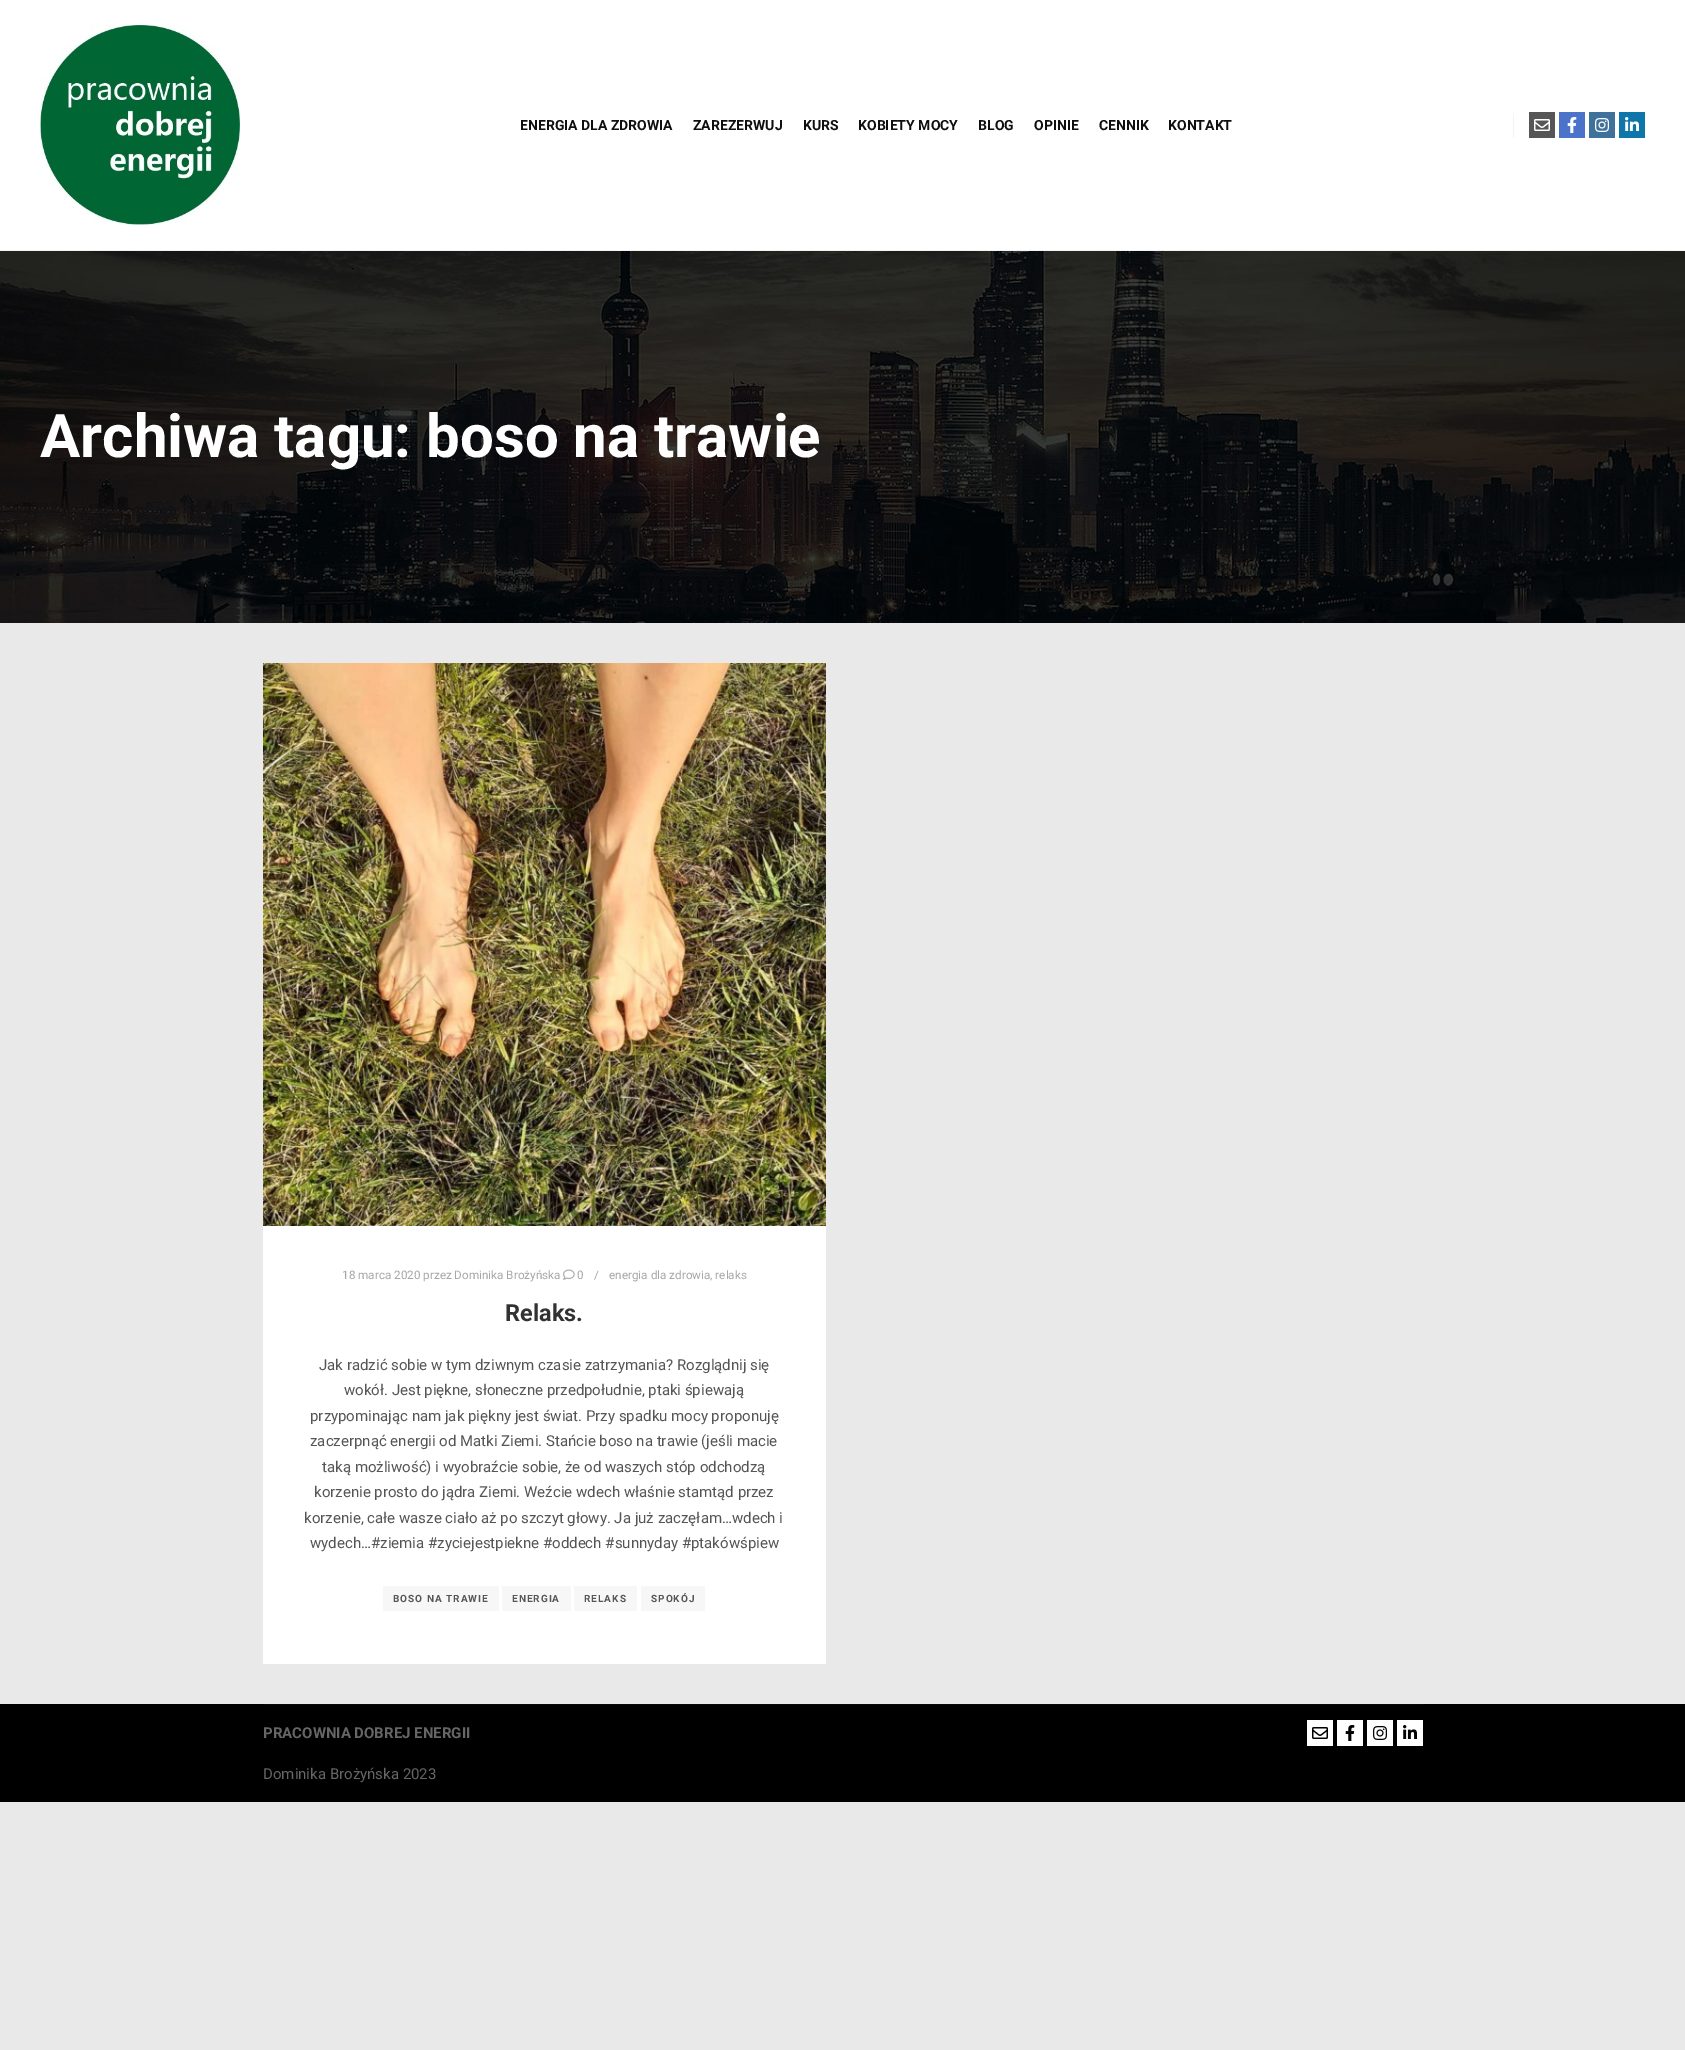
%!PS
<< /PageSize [1685 2050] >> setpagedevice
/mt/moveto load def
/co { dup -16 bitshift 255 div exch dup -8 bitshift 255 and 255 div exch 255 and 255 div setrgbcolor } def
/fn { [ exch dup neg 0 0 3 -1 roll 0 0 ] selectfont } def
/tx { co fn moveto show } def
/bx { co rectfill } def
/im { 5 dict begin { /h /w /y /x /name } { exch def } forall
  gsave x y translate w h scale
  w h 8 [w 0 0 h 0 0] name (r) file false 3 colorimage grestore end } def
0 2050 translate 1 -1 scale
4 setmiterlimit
0 0 1685 2050 16#E9E9E9 bx
0 0 1685 250 16#FFFFFF bx
0 250 1685 1 16#F3F3F3 bx
(media/1.raw) 40 25 200 200 im
1513 113 1 25 16#F3F3F3 bx
1529 112 26 26 16#565656 bx
(media/2.raw) 1534 119 16 12 im
1559 112 26 26 16#4A73C9 bx
(media/3.raw) 1567 117 10 16 im
1589 112 26 26 16#3F729B bx
(media/4.raw) 1595 118 14 14 im
1619 112 26 26 16#0E76A8 bx
(media/5.raw) 1625 117 14 14 im
(media/6.raw) 0 251 1685 372 im
(media/7.raw) 263 663 563 563 im
263 1226 563 438 16#FFFFFF bx
(media/8.raw) 563 1269 12 11 im
383 1586 116 25 16#F7F7F7 bx
502 1586 69 25 16#F7F7F7 bx
574 1586 63 25 16#F7F7F7 bx
641 1586 64 25 16#F7F7F7 bx
0 1704 1685 98 16#000000 bx
263 1704 1160 1 16#080808 bx
1307 1720 26 26 16#FFFFFF bx
(media/9.raw) 1312 1727 16 12 im
1337 1720 26 26 16#FFFFFF bx
(media/10.raw) 1345 1725 10 16 im
1367 1720 26 26 16#FFFFFF bx
(media/11.raw) 1373 1726 14 14 im
1397 1720 26 26 16#FFFFFF bx
(media/12.raw) 1403 1725 14 14 im
(ENERGIA DLA ZDROWIA) 520 130 /Roboto-Bold 14 16#0F0F0F tx
(ZAREZERWUJ) 693 130 /Roboto-Bold 14 16#0F0F0F tx
(KURS) 803 130 /Roboto-Bold 14 16#0F0F0F tx
(KOBIETY MOCY) 858 130 /Roboto-Bold 14 16#0F0F0F tx
(BLOG) 978 130 /Roboto-Bold 14 16#0F0F0F tx
(OPINIE) 1034 130 /Roboto-Bold 14 16#0F0F0F tx
(CENNIK) 1099 130 /Roboto-Bold 14 16#0F0F0F tx
(KONTAKT) 1168 130 /Roboto-Bold 14 16#0F0F0F tx
(Archiwa tagu: boso na trawie) 40 457 /Roboto-Bold 60 16#FFFFFF tx
(18 marca 2020 przez Dominika Brożyńska) 342 1279 /Roboto-Regular 11.7 16#A7A7A7 tx
(0) 577 1279 /Roboto-Regular 11.7 16#A7A7A7 tx
(/) 594 1279 /Roboto-Regular 11.7 16#A7A7A7 tx
(energia dla zdrowia, relaks) 609 1279 /Roboto-Regular 11.7 16#A7A7A7 tx
(Relaks.) 505 1321 /Roboto-Bold 23.5 16#323232 tx
(Jak radzić sobie w tym dziwnym czasie zatrzymania? Rozglądnij się) 319 1370 /Roboto-Regular 15 16#555555 tx
(wokół. Jest piękne, słoneczne przedpołudnie, ptaki śpiewają) 344 1395 /Roboto-Regular 15 16#555555 tx
(przypominając nam jak piękny jest świat. Przy spadku mocy proponuję) 310 1421 /Roboto-Regular 15 16#555555 tx
(zaczerpnąć energii od Matki Ziemi. Stańcie boso na trawie \(jeśli macie) 310 1446 /Roboto-Regular 15 16#555555 tx
(taką możliwość\) i wyobraźcie sobie, że od waszych stóp odchodzą) 322 1472 /Roboto-Regular 15 16#555555 tx
(korzenie prosto do jądra Ziemi. Weźcie wdech właśnie stamtąd przez) 314 1497 /Roboto-Regular 15 16#555555 tx
(korzenie, całe wasze ciało aż po szczyt głowy. Ja już zaczęłam…wdech i) 304 1523 /Roboto-Regular 15 16#555555 tx
(wydech…#ziemia #zyciejestpiekne #oddech #sunnyday #ptakówśpiew) 310 1548 /Roboto-Regular 15 16#555555 tx
/Roboto-Bold 10 fn
393 1602 mt 1 0 (BOSO NA TRAWIE) ashow
512 1602 mt 1 0 (ENERGIA) ashow
584 1602 mt 1 0 (RELAKS) ashow
651 1602 mt 1 0 (SPOKÓJ) ashow
(PRACOWNIA DOBREJ ENERGII) 263 1738 /Roboto-Bold 15 16#666666 tx
(Dominika Brożyńska 2023) 263 1779 /Roboto-Regular 15 16#666666 tx
showpage
